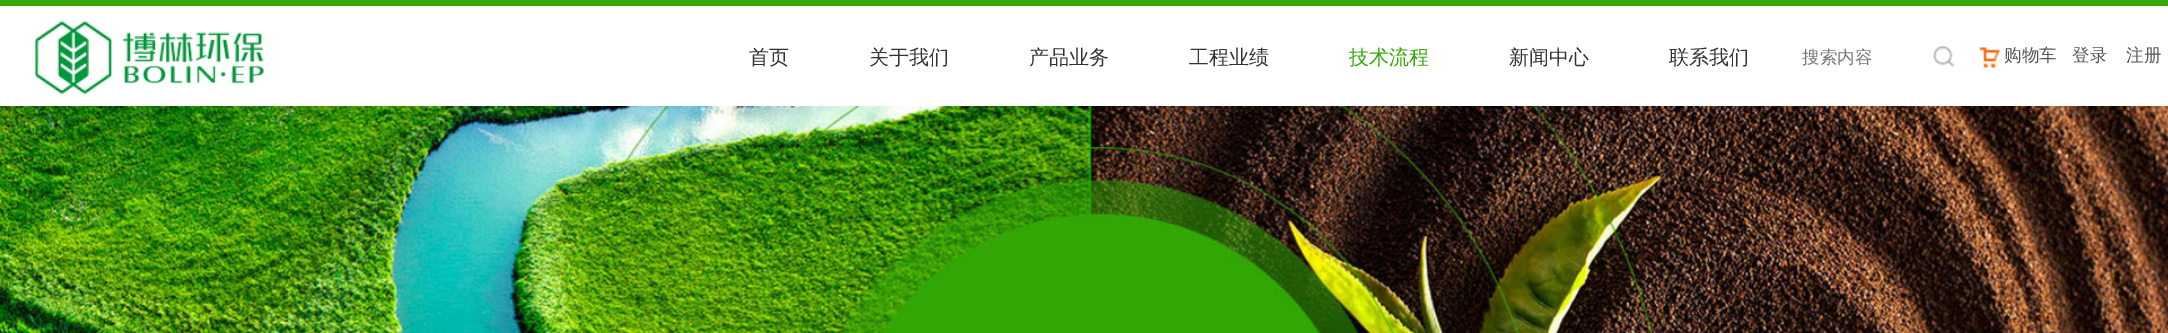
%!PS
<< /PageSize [2168 333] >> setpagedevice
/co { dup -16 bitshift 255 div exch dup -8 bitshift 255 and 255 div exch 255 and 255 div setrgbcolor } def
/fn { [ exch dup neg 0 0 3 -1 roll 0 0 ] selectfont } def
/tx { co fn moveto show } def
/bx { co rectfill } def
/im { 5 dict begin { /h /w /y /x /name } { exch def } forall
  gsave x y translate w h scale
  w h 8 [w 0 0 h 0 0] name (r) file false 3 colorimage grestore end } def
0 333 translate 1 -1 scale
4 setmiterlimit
0 0 2168 333 16#FFFFFF bx
0 0 2168 6 16#32A705 bx
(media/1.raw) 34 21 230 73 im
(media/2.raw) 1933 46 22 21 im
(media/3.raw) 1979 47 22 22 im
(media/4.raw) 0 106 2168 227 im
(首页) 749 64 /WenQuanYiZenHei-Medium 20 16#333333 tx
(关于我们) 869 64 /WenQuanYiZenHei-Medium 20 16#333333 tx
(产品业务) 1029 64 /WenQuanYiZenHei-Medium 20 16#333333 tx
(工程业绩) 1189 64 /WenQuanYiZenHei-Medium 20 16#333333 tx
(技术流程) 1349 64 /WenQuanYiZenHei-Medium 20 16#32A705 tx
(新闻中心) 1509 64 /WenQuanYiZenHei-Medium 20 16#333333 tx
(联系我们) 1669 64 /WenQuanYiZenHei-Medium 20 16#333333 tx
(搜索内容) 1802 63 /WenQuanYiZenHei-Medium 17.5 16#757575 tx
(购物车) 2004 61 /WenQuanYiZenHei-Medium 17.5 16#555555 tx
(登录) 2072 61 /WenQuanYiZenHei-Medium 17.5 16#555555 tx
(注册) 2126 61 /WenQuanYiZenHei-Medium 17.5 16#555555 tx
showpage
